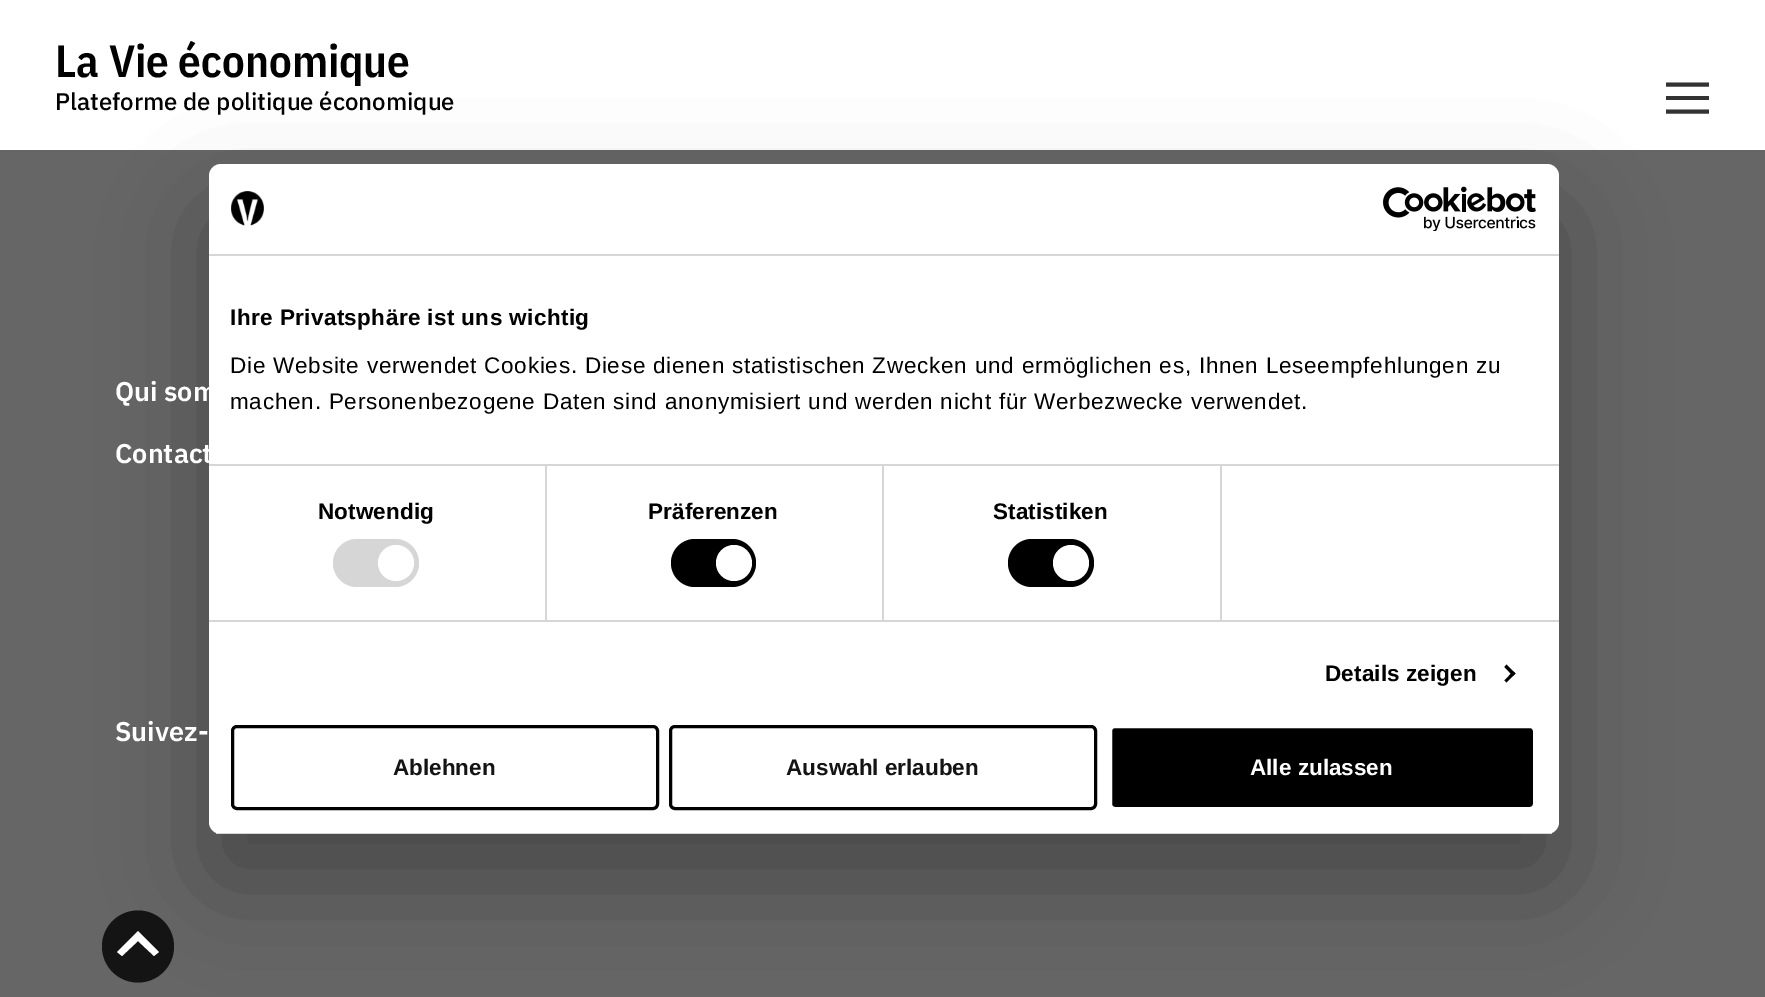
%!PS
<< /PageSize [1765 997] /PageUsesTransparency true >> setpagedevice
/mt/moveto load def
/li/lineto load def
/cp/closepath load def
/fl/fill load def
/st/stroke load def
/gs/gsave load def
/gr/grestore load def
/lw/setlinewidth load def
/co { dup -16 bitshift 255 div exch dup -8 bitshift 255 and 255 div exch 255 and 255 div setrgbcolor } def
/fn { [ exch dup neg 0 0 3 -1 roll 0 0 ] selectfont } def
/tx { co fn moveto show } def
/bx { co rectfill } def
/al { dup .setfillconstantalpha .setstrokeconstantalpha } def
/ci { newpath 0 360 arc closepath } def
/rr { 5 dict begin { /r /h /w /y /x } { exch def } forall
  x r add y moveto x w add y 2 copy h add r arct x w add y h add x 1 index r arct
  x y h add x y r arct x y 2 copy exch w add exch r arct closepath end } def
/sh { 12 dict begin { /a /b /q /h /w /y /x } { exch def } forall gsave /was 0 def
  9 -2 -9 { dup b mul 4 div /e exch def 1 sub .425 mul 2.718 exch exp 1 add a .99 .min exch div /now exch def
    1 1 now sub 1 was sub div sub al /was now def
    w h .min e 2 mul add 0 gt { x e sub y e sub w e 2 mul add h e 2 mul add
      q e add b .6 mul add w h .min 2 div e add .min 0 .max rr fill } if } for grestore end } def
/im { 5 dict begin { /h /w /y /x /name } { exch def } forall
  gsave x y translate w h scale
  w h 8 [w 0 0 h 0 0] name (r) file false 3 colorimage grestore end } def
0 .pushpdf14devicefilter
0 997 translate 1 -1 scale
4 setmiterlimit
0 0 1765 997 16#666666 bx
0 0 1765 150 16#FFFFFF bx
16#333333 co
4 lw
2 setlinecap
1 setlinejoin
1668 84.5 mt 1707 84.5 li 1668 111.5 mt 1707 111.5 li st
1666 96 43 4 16#333333 bx
16#141414 co
138 946.5 36 ci fl
16#FFFFFF co
122 956 mt 138 941 li 154 956 li 159 952 li 138 931 li 117 952 li cp fl
16#000000 co
209 212 1350 670 12 51 .3 sh
16#FFFFFF co
209 164 1350 670 12 rr fl
209 254 1350 2 16#D6D6D6 bx
(media/1.raw) 231 191 33 35 im
(media/2.raw) 1383 186 153 45 im
545 465 2 155 16#D6D6D6 bx
882 465 2 155 16#D6D6D6 bx
1220 465 2 155 16#D6D6D6 bx
209 464 1350 2 16#D6D6D6 bx
209 620 1350 2 16#D6D6D6 bx
333 539 86 48 24 rr fl
16#FFFFFF co
396 563 18 ci fl
16#000000 co
671 539 85 48 24 rr fl
16#FFFFFF co
734 563 18 ci fl
16#000000 co
1008 539 86 48 24 rr fl
16#FFFFFF co
1071 563 18 ci fl
16#000000 co
1506.5 664.5 mt 1515.5 673.5 li 1513 676 li 1504.5 667 li cp fl
1513 671.5 mt 1515.5 673.5 li 1506.5 682.5 li 1504.5 680.5 li cp fl
gs
209 164 1350 670 12 rr clip newpath
209 833 1350 1 16#D6D6D6 bx
gr
3 lw
0 setlinecap
0 setlinejoin
232.5 726.5 425 82 4.5 rr st
670.5 726.5 425 82 4.5 rr st
1110.5 726.5 424 82 4.5 rr gs fl gr
16#FFFFFF co
st
(La Vie économique) 55 77 /IBMPlexSansCondensed-SemiBold 45 16#000000 tx
(Plateforme de politique économique) 55 110 /IBMPlexSans-Medium 24 16#000000 tx
(Qui som) 115 401 /IBMPlexSans-SemiBold 27 16#FFFFFF tx
(Contact) 115 463 /IBMPlexSans-SemiBold 27 16#FFFFFF tx
(Suivez-) 115 741 /IBMPlexSans-SemiBold 27 16#FFFFFF tx
/LiberationSans-Bold 22.5 fn
16#000000 co
230 325 mt .4 0 (Ihre Privatsphäre ist uns wichtig) ashow
/LiberationSans-Regular 22.5 fn
230 373 mt .75 0 (Die Website verwendet Cookies. Diese dienen statistischen Zwecken und ermöglichen es, Ihnen Leseempfehlungen zu) ashow
230 409 mt .75 0 (machen. Personenbezogene Daten sind anonymisiert und werden nicht für Werbezwecke verwendet.) ashow
/LiberationSans-Bold 22.5 fn
318 519 mt .1 0 (Notwendig) ashow
648 519 mt .1 0 (Präferenzen) ashow
993 519 mt .1 0 (Statistiken) ashow
1325 681 mt .1 0 (Details zeigen) ashow
(Ablehnen) 393 775 /LiberationSans-Bold 22.5 16#141414 tx
(Auswahl erlauben) 786 775 /LiberationSans-Bold 22.5 16#141414 tx
(Alle zulassen) 1250 775 /LiberationSans-Bold 22.5 16#FFFFFF tx
.poppdf14devicefilter showpage
